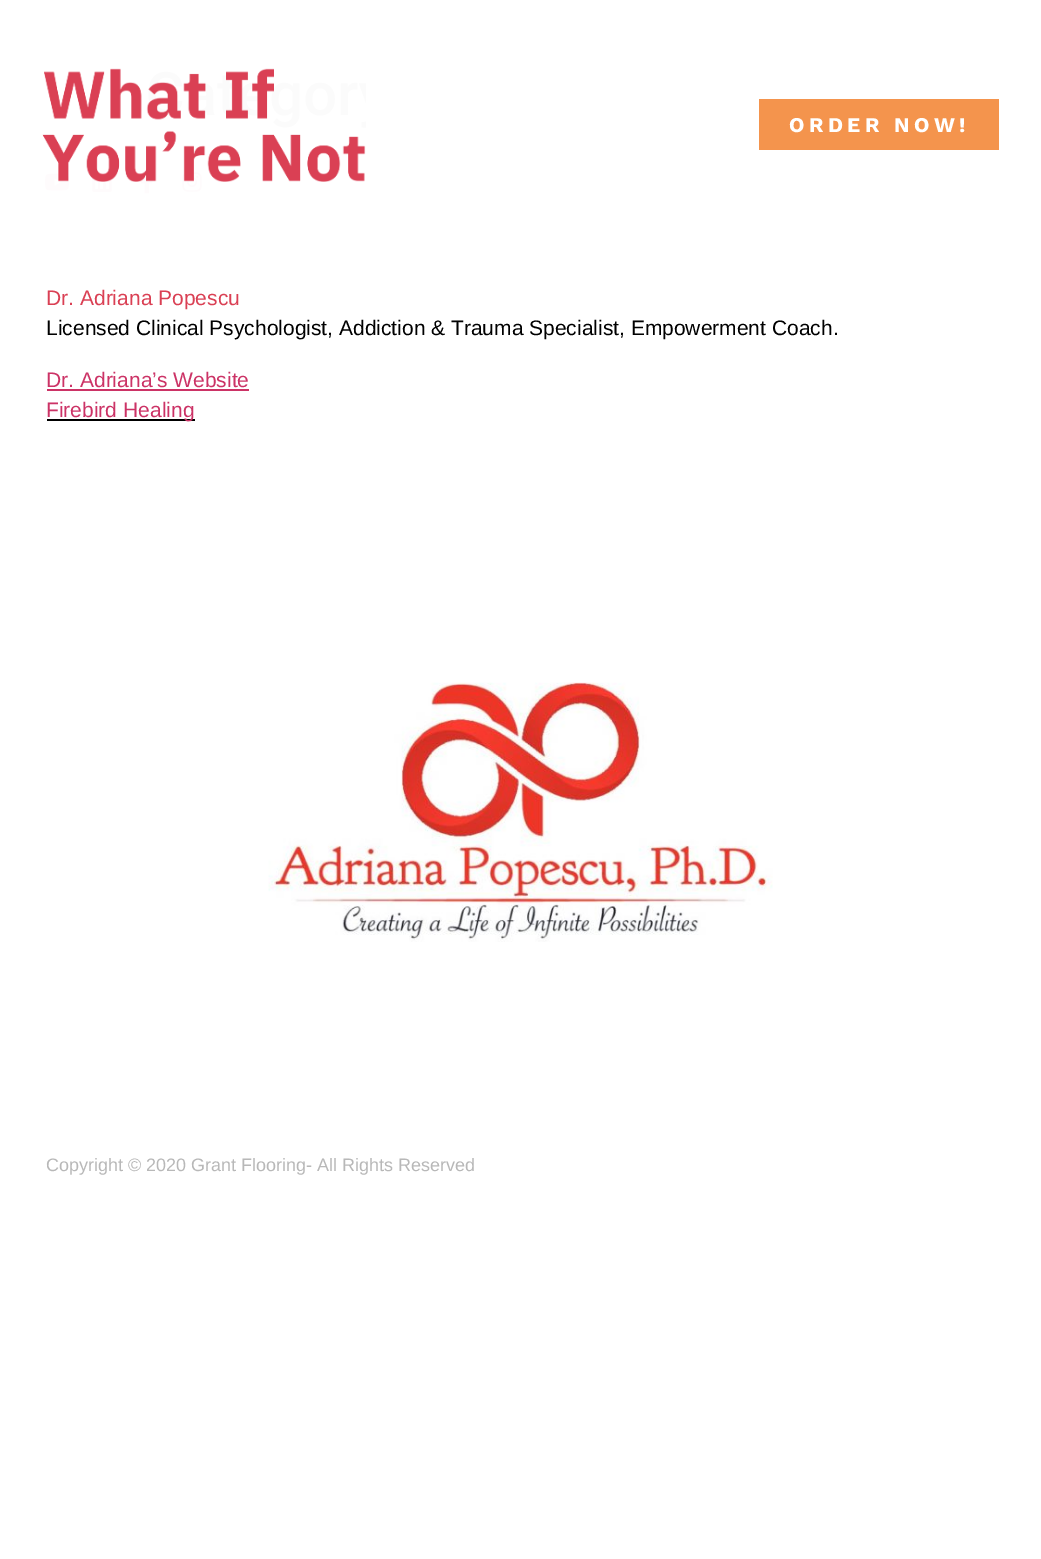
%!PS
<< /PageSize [1041 1559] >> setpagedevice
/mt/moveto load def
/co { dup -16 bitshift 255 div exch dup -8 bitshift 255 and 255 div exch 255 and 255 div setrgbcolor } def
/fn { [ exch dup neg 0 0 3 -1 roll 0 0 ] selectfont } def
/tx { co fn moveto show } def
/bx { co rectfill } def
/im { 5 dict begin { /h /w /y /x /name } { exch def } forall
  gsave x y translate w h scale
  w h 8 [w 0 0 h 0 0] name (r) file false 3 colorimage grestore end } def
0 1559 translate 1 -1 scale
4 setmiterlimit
0 0 1041 1559 16#FFFFFF bx
(media/2.raw) 45 173 24 18 im
(media/3.raw) 92 172 20 20 im
(media/4.raw) 141 174 12 20 im
(media/5.raw) 182 172 20 20 im
(media/1.raw) 42 68 324 114 im
759 99 240 51 16#F4944D bx
47 389 202 2 16#CC3366 bx
47 419 148 2 16#000000 bx
(media/6.raw) 268 682 505 260 im
/WorkSans-Bold 21 fn
16#FFFFFF co
789 132 mt 4.4 0 (ORDER NOW!) ashow
(Dr. Adriana Popescu) 46 305 /LiberationSans-Regular 21 16#DA4054 tx
(Licensed Clinical Psychologist, Addiction & Trauma Specialist, Empowerment Coach.) 46 335 /LiberationSans-Regular 21 16#000000 tx
(Dr. Adriana’s Website) 46 387 /LiberationSans-Regular 21 16#CC3366 tx
(Firebird Healing) 46 417 /LiberationSans-Regular 21 16#CC3366 tx
(Copyright © 2020 Grant Flooring- All Rights Reserved) 46 1171 /LiberationSans-Regular 18 16#B8B8B8 tx
showpage
